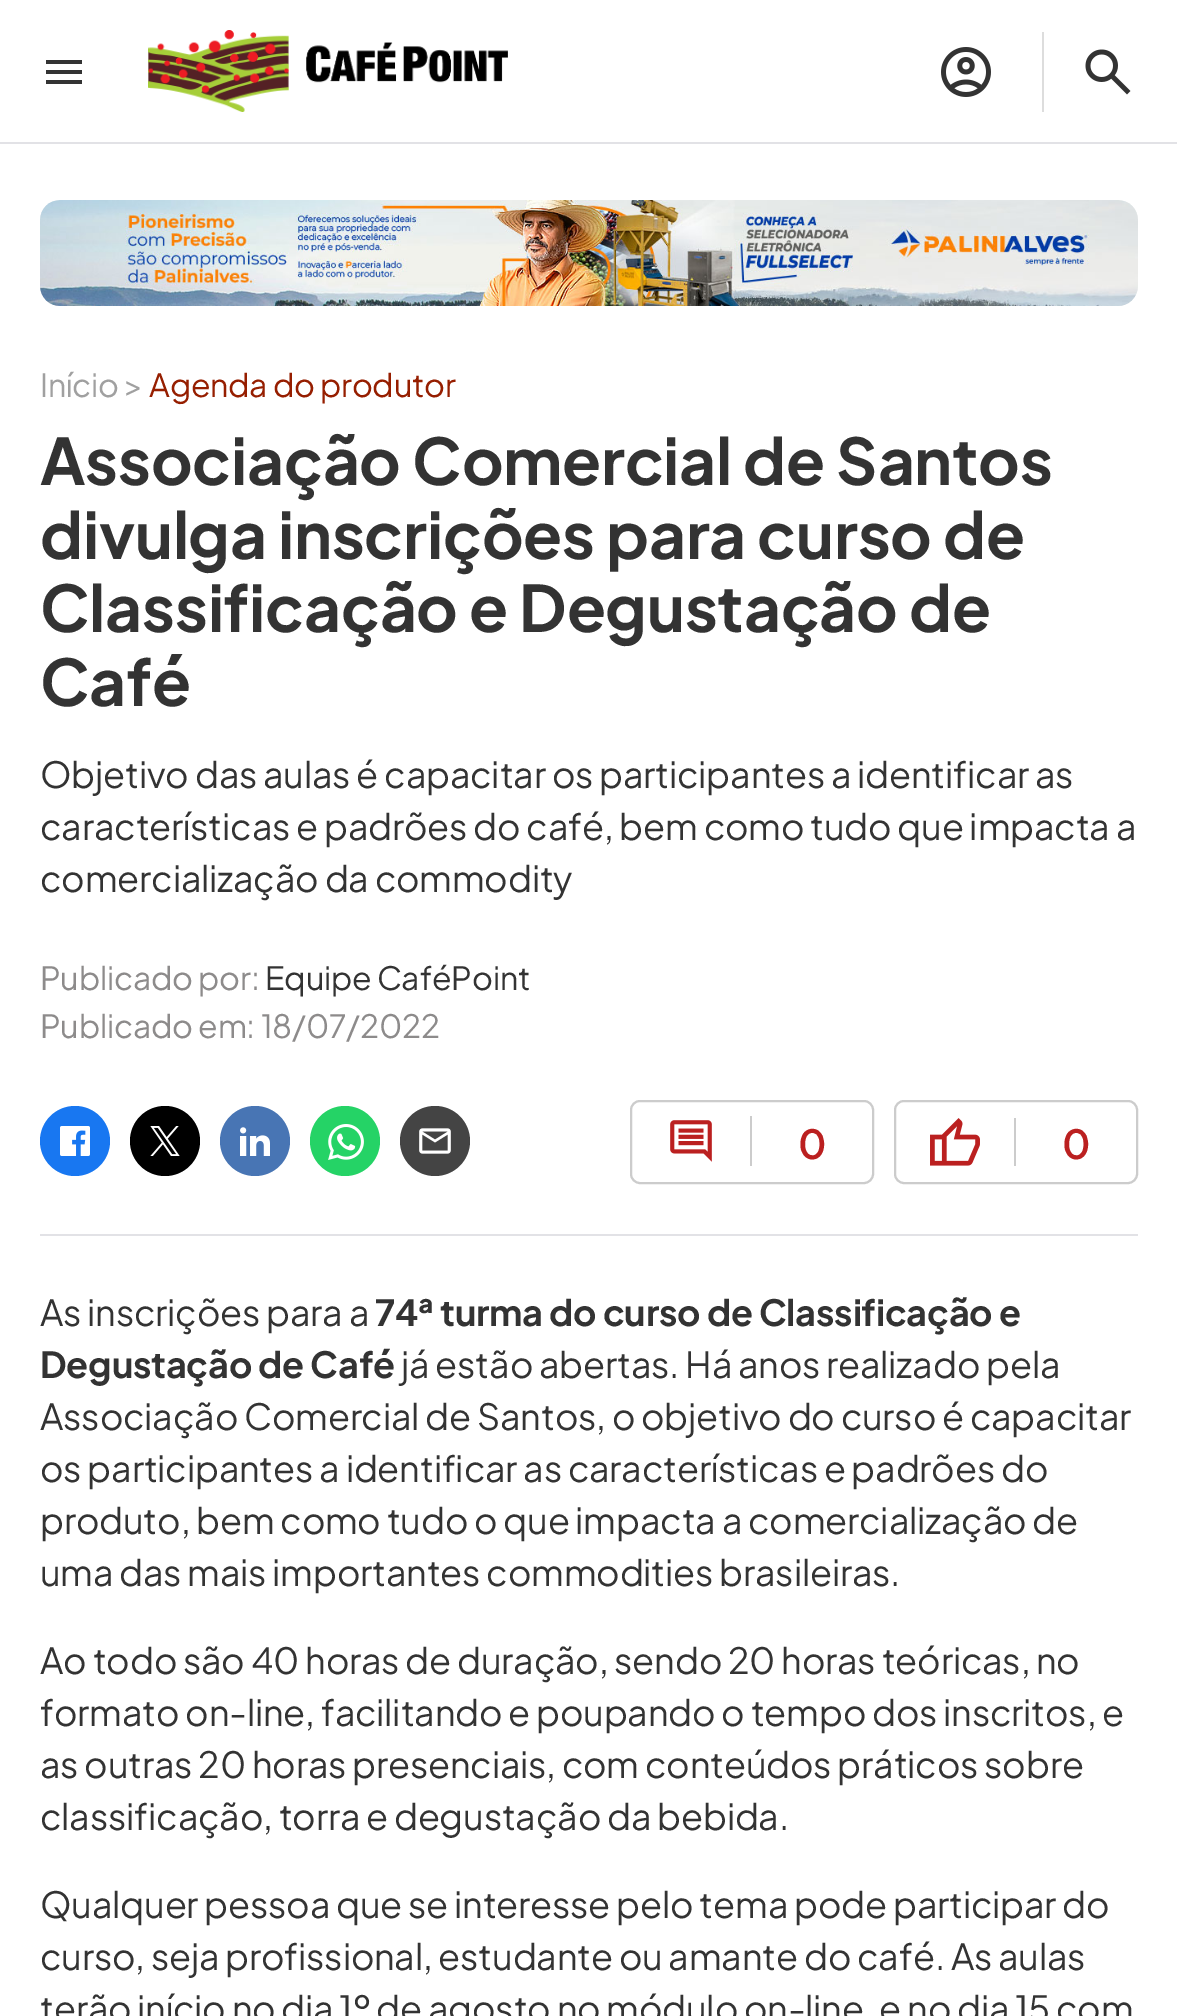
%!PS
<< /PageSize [1177 2016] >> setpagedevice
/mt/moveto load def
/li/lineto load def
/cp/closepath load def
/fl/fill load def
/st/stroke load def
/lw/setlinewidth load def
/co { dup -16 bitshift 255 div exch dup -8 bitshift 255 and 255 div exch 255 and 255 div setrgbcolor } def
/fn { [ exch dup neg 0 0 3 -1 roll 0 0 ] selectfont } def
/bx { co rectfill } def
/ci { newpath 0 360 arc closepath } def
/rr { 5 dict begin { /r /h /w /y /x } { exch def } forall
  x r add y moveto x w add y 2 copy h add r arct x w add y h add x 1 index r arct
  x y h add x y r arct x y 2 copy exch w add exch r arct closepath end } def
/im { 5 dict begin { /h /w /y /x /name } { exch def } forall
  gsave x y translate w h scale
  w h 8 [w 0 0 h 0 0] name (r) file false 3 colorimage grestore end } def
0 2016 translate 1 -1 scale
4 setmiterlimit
0 0 1177 2016 16#FFFFFF bx
0 142 1177 2 16#E2E2E6 bx
16#333333 co
46 84 mt 46 80 li 82 80 li 82 84 li cp 46 74 mt 46 70 li 82 70 li 82 74 li cp 46 64 mt 46 60 li 82 60 li 82 64 li cp fl
(media/1.raw) 148 30 360 82 im
(media/2.raw) 941 47 50 50 im
1042 32 2 80 16#DDDDDD bx
(media/3.raw) 1085 49 46 46 im
16#F5F5F5 co
40 200 1098 106 20 rr fl
(media/4.raw) 40 200 1098 106 im
16#1877F1 co
75 1141 35 ci fl
(media/5.raw) 60 1126 30 30 im
16#000000 co
165 1141 35 ci fl
(media/6.raw) 150 1126 30 30 im
16#4875B4 co
255 1141 35 ci fl
(media/7.raw) 240 1127 30 29 im
16#25D366 co
345 1141 35 ci fl
(media/8.raw) 328 1124 36 36 im
16#444444 co
435 1141 35 ci fl
(media/9.raw) 419 1128 32 26 im
16#CCCCCC co
2 lw
631 1101 242 82 9 rr st
750 1116 2 50 16#CCCCCC bx
(media/10.raw) 670 1120 42 42 im
895 1101 242 82 9 rr st
1014 1118 2 48 16#CCCCCC bx
(media/11.raw) 930 1118 50 48 im
40 1234 1098 2 16#E2E2E6 bx
/PlusJakartaSans-Regular 32 fn
16#A0A0A0 co
40 397 mt -.2 0 (Início >) ashow
16#961E00 co
149 397 mt -.2 0 (Agenda do produtor) ashow
/PlusJakartaSans-Bold 64 fn
16#333333 co
40 485 mt -.2 0 (Associação Comercial de Santos) ashow
40 559 mt -.2 0 (divulga inscrições para curso de) ashow
40 632 mt -.2 0 (Classificação e Degustação de) ashow
40 706 mt -.2 0 (Café) ashow
/PlusJakartaSans-Regular 36 fn
40 788 mt -.2 0 (Objetivo das aulas é capacitar os participantes a identificar as) ashow
40 840 mt -.2 0 (características e padrões do café, bem como tudo que impacta a) ashow
40 892 mt -.2 0 (comercialização da commodity) ashow
/PlusJakartaSans-Regular 32 fn
16#8D8B8B co
40 990 mt -.2 0 (Publicado por:) ashow
16#333333 co
265 990 mt -.2 0 (Equipe CaféPoint) ashow
16#8D8B8B co
40 1038 mt -.2 0 (Publicado em: 18/07/2022) ashow
/PlusJakartaSans-SemiBold 40 fn
16#BB2020 co
798 1159 mt -.2 0 (0) ashow
1062 1159 mt -.2 0 (0) ashow
/PlusJakartaSans-Regular 36 fn
16#333333 co
40 1326 mt -.2 0 (As inscrições para a) ashow
/PlusJakartaSans-Bold 36 fn
375 1326 mt -.2 0 (74ª turma do curso de Classificação e) ashow
40 1378 mt -.2 0 (Degustação de Café) ashow
/PlusJakartaSans-Regular 36 fn
401 1378 mt -.2 0 (já estão abertas. Há anos realizado pela) ashow
40 1430 mt -.2 0 (Associação Comercial de Santos, o objetivo do curso é capacitar) ashow
40 1482 mt -.2 0 (os participantes a identificar as características e padrões do) ashow
40 1534 mt -.2 0 (produto, bem como tudo o que impacta a comercialização de) ashow
40 1586 mt -.2 0 (uma das mais importantes commodities brasileiras.) ashow
40 1674 mt -.2 0 (Ao todo são 40 horas de duração, sendo 20 horas teóricas, no) ashow
40 1726 mt -.2 0 (formato on-line, facilitando e poupando o tempo dos inscritos, e) ashow
40 1778 mt -.2 0 (as outras 20 horas presenciais, com conteúdos práticos sobre) ashow
40 1830 mt -.2 0 (classificação, torra e degustação da bebida.) ashow
40 1918 mt -.2 0 (Qualquer pessoa que se interesse pelo tema pode participar do) ashow
40 1970 mt -.2 0 (curso, seja profissional, estudante ou amante do café. As aulas) ashow
40 2022 mt -.2 0 (terão início no dia 1º de agosto no módulo on-line, e no dia 15 com) ashow
showpage
